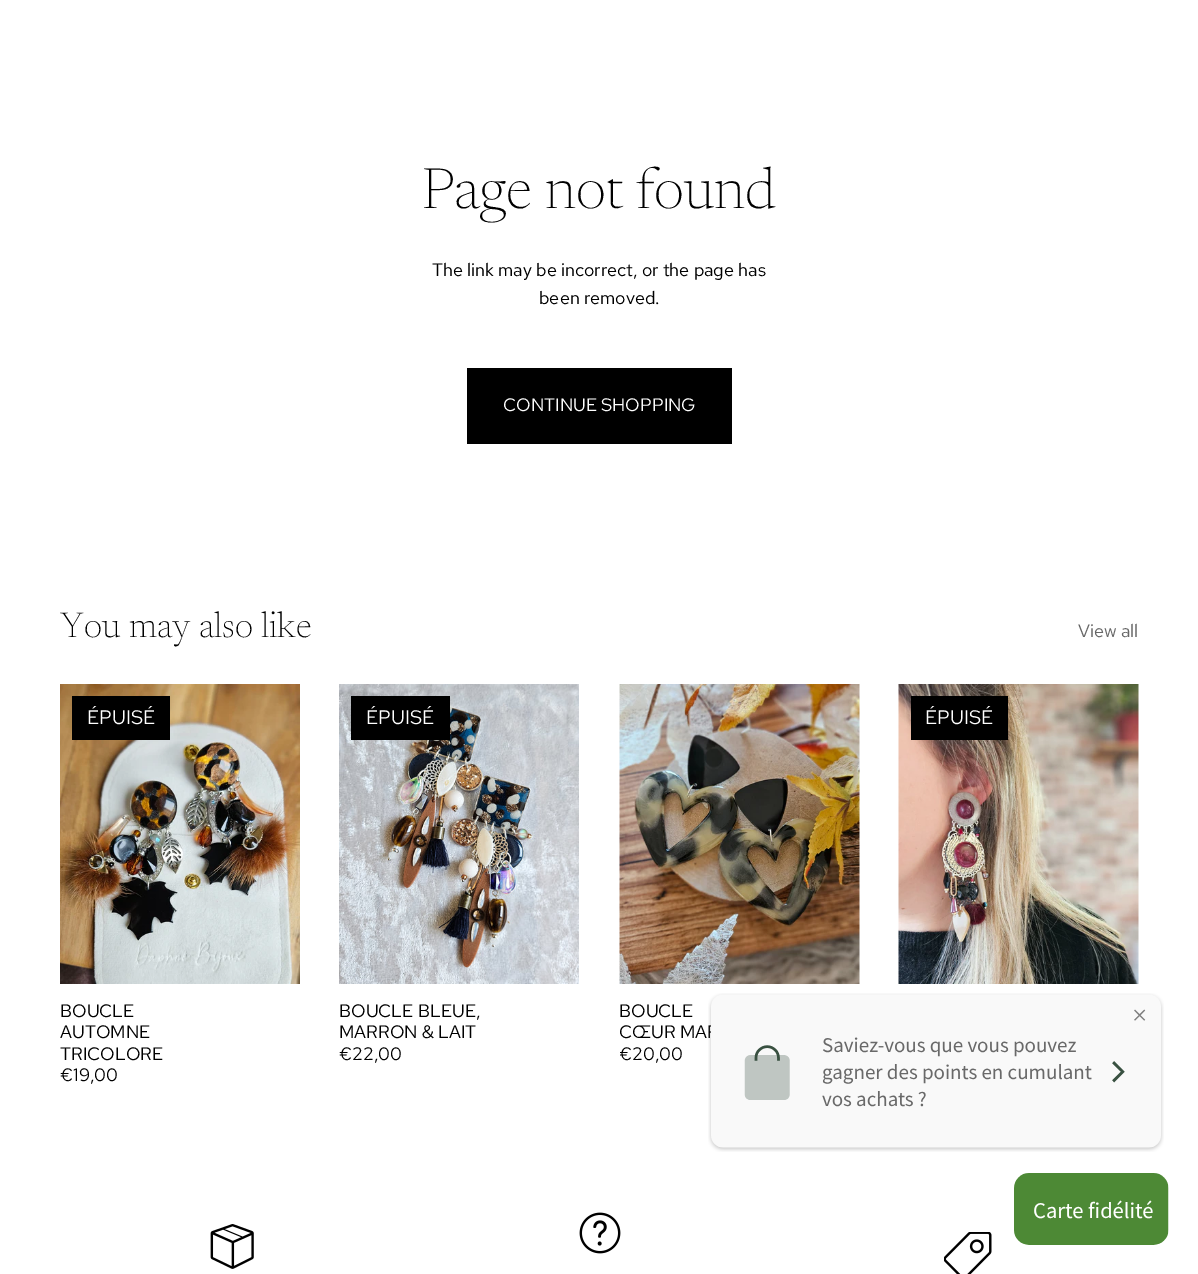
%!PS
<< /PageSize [1198 1274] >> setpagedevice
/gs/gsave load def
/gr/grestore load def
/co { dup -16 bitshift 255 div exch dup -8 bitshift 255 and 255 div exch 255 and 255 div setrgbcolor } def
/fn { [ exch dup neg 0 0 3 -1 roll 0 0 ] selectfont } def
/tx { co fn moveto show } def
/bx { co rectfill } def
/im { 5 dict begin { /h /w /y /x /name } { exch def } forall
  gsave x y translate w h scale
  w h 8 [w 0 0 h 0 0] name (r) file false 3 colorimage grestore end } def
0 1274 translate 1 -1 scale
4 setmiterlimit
0 0 1198 1274 16#FFFFFF bx
467 368 265 76 16#000000 bx
(media/1.raw) 60 684 240 300 im
72 696 98 44 16#000000 bx
(media/2.raw) 339 684 240 300 im
351 696 99 44 16#000000 bx
(media/3.raw) 898 684 241 300 im
911 696 97 44 16#000000 bx
(media/4.raw) 619 684 241 300 im
(media/5.raw) 708 993 456 159 im
(media/6.raw) 210 1224 44 45 im
(media/7.raw) 579 1212 42 42 im
(media/8.raw) 944 1232 48 42 im
(media/9.raw) 1014 1173 155 72 im
(Page not found) 422 208 /Newsreader-ExtraLight 57.5 16#000000 tx
(The link may be incorrect, or the page has) 432 276 /RedHatText-Regular 18 16#000000 tx
(been removed.) 539 304 /RedHatText-Regular 18 16#000000 tx
(CONTINUE SHOPPING) 503 411 /RedHatText-Regular 18 16#FFFFFF tx
(You may also like) 60 637 /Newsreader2-ExtraLight 36 16#000000 tx
(View all) 1078 637 /RedHatText-Regular 18 16#666666 tx
(ÉPUISÉ) 87 724 /RedHatText-Regular 19.5 16#FFFFFF tx
(BOUCLE) 60 1017 /RedHatText-Regular 18 16#000000 tx
(AUTOMNE) 60 1038 /RedHatText-Regular 18 16#000000 tx
(TRICOLORE) 60 1060 /RedHatText-Regular 18 16#000000 tx
(€19,00) 60 1081 /RedHatText-Regular 18 16#000000 tx
(ÉPUISÉ) 366 724 /RedHatText-Regular 19.5 16#FFFFFF tx
(BOUCLE BLEUE,) 339 1017 /RedHatText-Regular 18 16#000000 tx
(MARRON & LAIT) 339 1038 /RedHatText-Regular 18 16#000000 tx
(€22,00) 339 1060 /RedHatText-Regular 18 16#000000 tx
(ÉPUISÉ) 925 724 /RedHatText-Regular 19.5 16#FFFFFF tx
(BOUCLE) 619 1017 /RedHatText-Regular 18 16#000000 tx
gs
620 684 240 425 rectclip
(CŒUR MA) 619 1038 /RedHatText-Regular 18 16#000000 tx
(€20,00) 619 1060 /RedHatText-Regular 18 16#000000 tx
gr
showpage
